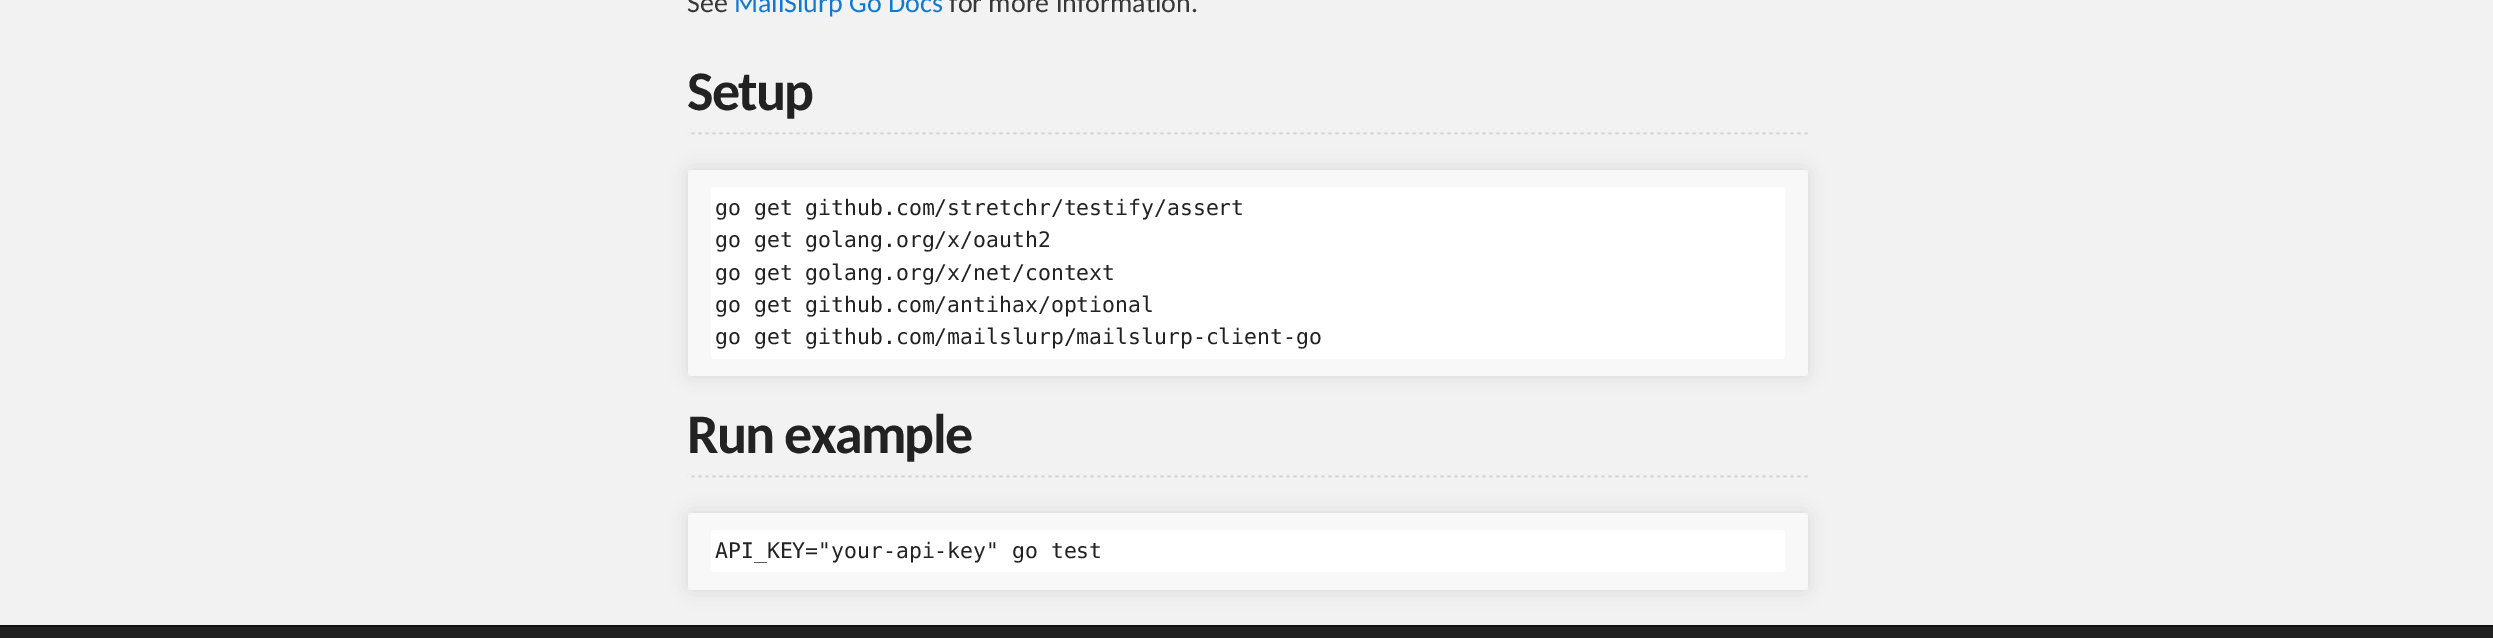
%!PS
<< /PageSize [2493 638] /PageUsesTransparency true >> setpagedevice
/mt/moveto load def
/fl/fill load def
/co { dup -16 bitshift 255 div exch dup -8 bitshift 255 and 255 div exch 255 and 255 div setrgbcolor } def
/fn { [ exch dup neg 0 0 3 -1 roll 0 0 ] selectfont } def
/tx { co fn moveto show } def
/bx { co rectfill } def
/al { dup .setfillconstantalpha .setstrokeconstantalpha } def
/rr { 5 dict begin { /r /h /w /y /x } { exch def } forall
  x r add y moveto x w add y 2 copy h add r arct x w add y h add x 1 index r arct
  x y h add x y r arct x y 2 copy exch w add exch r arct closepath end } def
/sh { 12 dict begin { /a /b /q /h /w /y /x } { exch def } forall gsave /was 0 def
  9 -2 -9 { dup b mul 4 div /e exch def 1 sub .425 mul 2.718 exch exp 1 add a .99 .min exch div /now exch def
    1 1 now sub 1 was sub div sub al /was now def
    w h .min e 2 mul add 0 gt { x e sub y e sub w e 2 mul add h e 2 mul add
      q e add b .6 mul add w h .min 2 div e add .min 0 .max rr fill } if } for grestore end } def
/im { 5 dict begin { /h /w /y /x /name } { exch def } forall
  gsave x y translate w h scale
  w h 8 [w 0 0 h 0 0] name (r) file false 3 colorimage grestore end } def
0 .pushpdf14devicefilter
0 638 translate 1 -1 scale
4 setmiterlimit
0 0 2493 638 16#212121 bx
0 0 2493 625 16#F2F2F2 bx
0 625 2493 2 16#111111 bx
(media/1.raw) 687 132 1121 3 im
688 170 1120 206 16#F8F8F8 bx
16#000000 co
688 170 1120 206 4 9 .1 sh
16#F8F8F8 co
688 170 1120 206 4 rr fl
16#FFFFFF co
711 187 1074 172 4 rr fl
(media/1.raw) 687 475 1121 3 im
688 513 1120 77 16#F8F8F8 bx
16#000000 co
688 513 1120 77 4 9 .1 sh
16#F8F8F8 co
688 513 1120 77 4 rr fl
16#FFFFFF co
711 530 1074 42 4 rr fl
(See) 687 12 /Carlito-Regular 28 16#373737 tx
(MailSlurp Go Docs) 734 12 /Carlito-Regular 28 16#0F79D0 tx
(for more information.) 949 12 /Carlito-Regular 28 16#373737 tx
/Carlito-Bold 56 fn
16#222222 co
687 110 mt -1.75 0 (Setup) ashow
(go get github.com/stretchr/testify/assert) 715 215 /DejaVuSansMono-Regular 21.45 16#222222 tx
(go get golang.org/x/oauth2) 715 247 /DejaVuSansMono-Regular 21.45 16#222222 tx
(go get golang.org/x/net/context) 715 280 /DejaVuSansMono-Regular 21.45 16#222222 tx
(go get github.com/antihax/optional) 715 312 /DejaVuSansMono-Regular 21.45 16#222222 tx
(go get github.com/mailslurp/mailslurp-client-go) 715 344 /DejaVuSansMono-Regular 21.45 16#222222 tx
/Carlito-Bold 56 fn
687 453 mt -1.75 0 (Run example) ashow
(API_KEY="your-api-key" go test) 715 558 /DejaVuSansMono-Regular 21.45 16#222222 tx
.poppdf14devicefilter showpage
